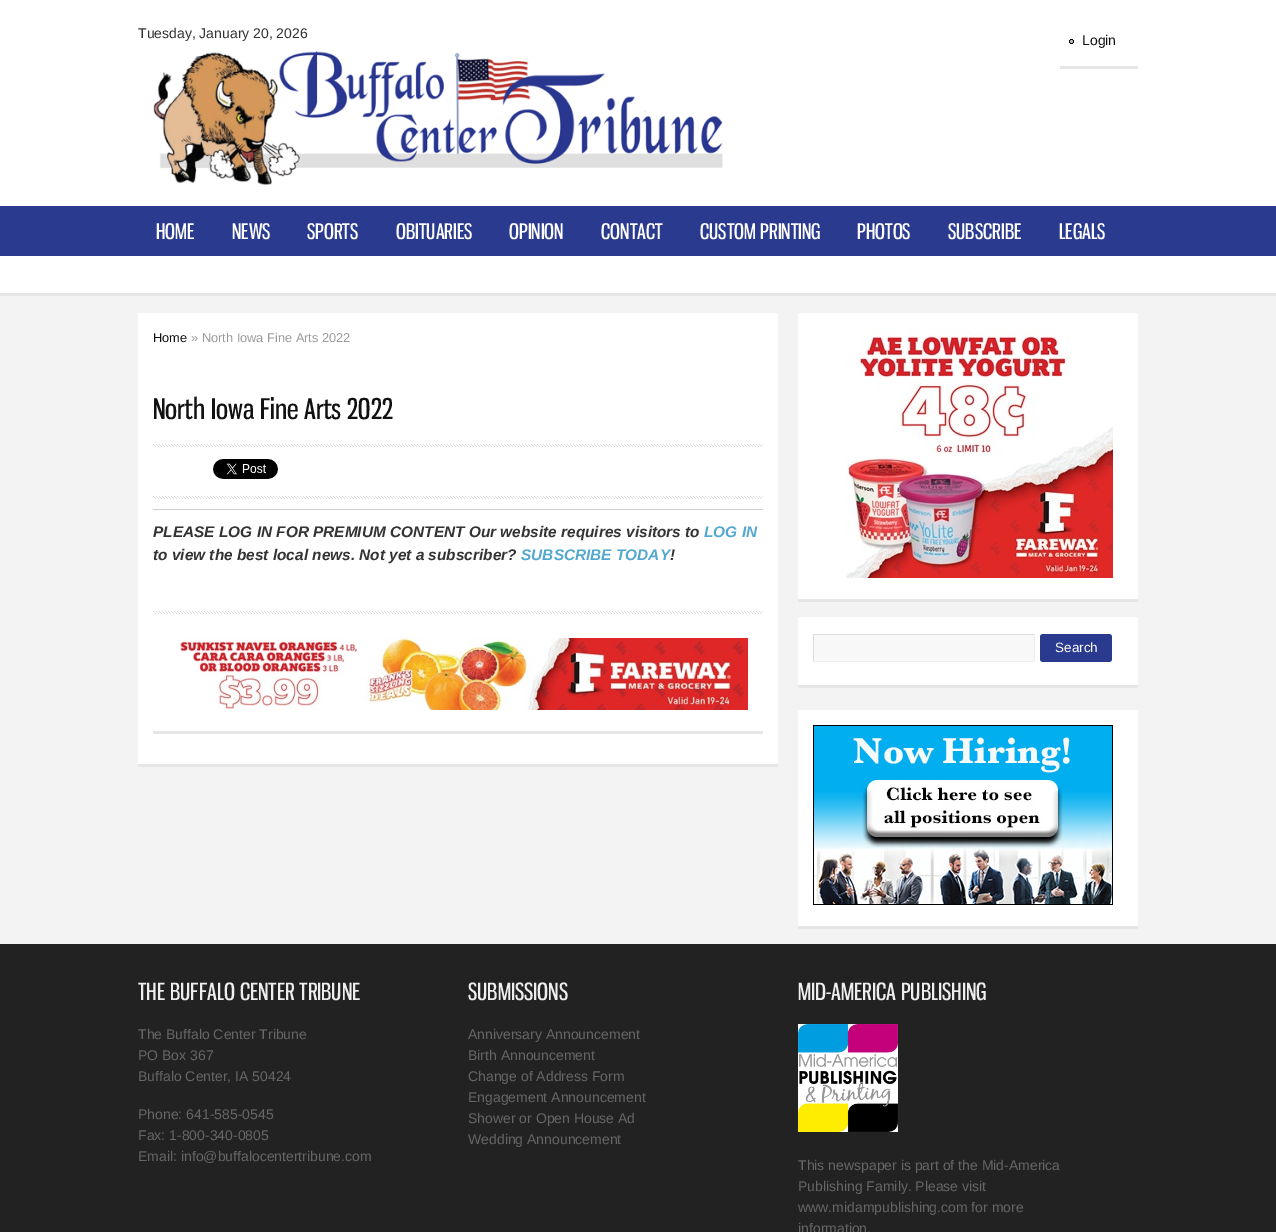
%!PS
<< /PageSize [1276 1232] >> setpagedevice
/fl/fill load def
/co { dup -16 bitshift 255 div exch dup -8 bitshift 255 and 255 div exch 255 and 255 div setrgbcolor } def
/fn { [ exch dup neg 0 0 3 -1 roll 0 0 ] selectfont } def
/tx { co fn moveto show } def
/bx { co rectfill } def
/rr { 5 dict begin { /r /h /w /y /x } { exch def } forall
  x r add y moveto x w add y 2 copy h add r arct x w add y h add x 1 index r arct
  x y h add x y r arct x y 2 copy exch w add exch r arct closepath end } def
/im { 5 dict begin { /h /w /y /x /name } { exch def } forall
  gsave x y translate w h scale
  w h 8 [w 0 0 h 0 0] name (r) file false 3 colorimage grestore end } def
0 1232 translate 1 -1 scale
4 setmiterlimit
0 0 1276 1232 16#F3F3F3 bx
0 0 1276 206 16#FFFFFF bx
(media/1.raw) 153 50 570 135 im
1060 66 78 3 16#E6E6E6 bx
(media/2.raw) 1069 39 5 5 im
0 206 1276 50 16#2A3A8E bx
0 293 1276 3 16#E6E6E6 bx
0 256 1276 37 16#FFFFFF bx
138 313 640 451 16#FFFFFF bx
138 764 640 3 16#E6E6E6 bx
(media/3.raw) 153 444 610 3 im
(media/3.raw) 153 496 610 3 im
(media/4.raw) 213 459 65 20 im
153 509 610 1 16#CCCCCC bx
(media/3.raw) 153 611 610 3 im
153 731 610 3 16#E6E6E6 bx
(media/5.raw) 180 638 568 72 im
798 313 340 286 16#FFFFFF bx
798 599 340 3 16#E6E6E6 bx
(media/6.raw) 845 328 268 250 im
798 617 340 68 16#FFFFFF bx
798 685 340 3 16#E6E6E6 bx
814 635 220 26 16#F8F8F8 bx
813 634 222 1 16#DDDDDD bx
1034 634 1 28 16#EEEEEE bx
813 661 222 1 16#EEEEEE bx
813 634 1 28 16#DDDDDD bx
16#2A3A8E co
1040 634 72 28 3 rr fl
798 710 340 216 16#FFFFFF bx
798 926 340 3 16#E6E6E6 bx
(media/7.raw) 813 725 300 180 im
0 944 1276 288 16#222222 bx
(media/8.raw) 798 1024 100 108 im
(Tuesday, January 20, 2026) 138 38 /LiberationSans-Regular 14 16#333333 tx
(Login) 1082 45 /LiberationSans-Regular 14 16#111111 tx
(HOME) 156 239 /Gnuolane-Regular 21 16#FFFFFF tx
(NEWS) 232 239 /Gnuolane-Regular 21 16#FFFFFF tx
(SPORTS) 307 239 /Gnuolane-Regular 21 16#FFFFFF tx
(OBITUARIES) 396 239 /Gnuolane-Regular 21 16#FFFFFF tx
(OPINION) 509 239 /Gnuolane-Regular 21 16#FFFFFF tx
(CONTACT) 601 239 /Gnuolane-Regular 21 16#FFFFFF tx
(CUSTOM PRINTING) 700 239 /Gnuolane-Regular 21 16#FFFFFF tx
(PHOTOS) 857 239 /Gnuolane-Regular 21 16#FFFFFF tx
(SUBSCRIBE) 948 239 /Gnuolane-Regular 21 16#FFFFFF tx
(LEGALS) 1059 239 /Gnuolane-Regular 21 16#FFFFFF tx
(Home) 153 342 /LiberationSans-Regular 12.8 16#111111 tx
(» North Iowa Fine Arts 2022) 191 342 /LiberationSans-Regular 12.8 16#999999 tx
(North Iowa Fine Arts 2022) 153 419 /Gnuolane-Regular 28 16#111111 tx
(PLEASE LOG IN FOR PREMIUM CONTENT Our website requires visitors to) 153 537 /LiberationSans-BoldItalic 15.4 16#333333 tx
(LOG IN) 704 537 /LiberationSans-BoldItalic 15.4 16#53A8D0 tx
(to view the best local news. Not yet a subscriber?) 153 560 /LiberationSans-BoldItalic 15.4 16#333333 tx
(SUBSCRIBE TODAY) 521 560 /LiberationSans-BoldItalic 15.4 16#53A8D0 tx
(!) 670 560 /LiberationSans-BoldItalic 15.4 16#333333 tx
(Search) 1055 652 /LiberationSans-Regular 13.5 16#FFFFFF tx
(THE BUFFALO CENTER TRIBUNE) 138 1000 /Gnuolane-Regular 23.25 16#EEEEEE tx
(The Buffalo Center Tribune) 138 1039 /LiberationSans-Regular 14 16#666666 tx
(PO Box 367) 138 1060 /LiberationSans-Regular 14 16#666666 tx
(Buffalo Center, IA 50424) 138 1081 /LiberationSans-Regular 14 16#666666 tx
(Phone: 641-585-0545) 138 1119 /LiberationSans-Regular 14 16#666666 tx
(Fax: 1-800-340-0805) 138 1140 /LiberationSans-Regular 14 16#666666 tx
(Email: info@buffalocentertribune.com) 138 1161 /LiberationSans-Regular 14 16#666666 tx
(SUBMISSIONS) 468 1000 /Gnuolane-Regular 23.25 16#EEEEEE tx
(Anniversary Announcement) 468 1039 /LiberationSans-Regular 14 16#666666 tx
(Birth Announcement) 468 1060 /LiberationSans-Regular 14 16#666666 tx
(Change of Address Form) 468 1081 /LiberationSans-Regular 14 16#666666 tx
(Engagement Announcement) 468 1102 /LiberationSans-Regular 14 16#666666 tx
(Shower or Open House Ad) 468 1123 /LiberationSans-Regular 14 16#666666 tx
(Wedding Announcement) 468 1144 /LiberationSans-Regular 14 16#666666 tx
(MID-AMERICA PUBLISHING) 798 1000 /Gnuolane-Regular 23.25 16#EEEEEE tx
(This newspaper is part of the Mid-America) 798 1170 /LiberationSans-Regular 14 16#666666 tx
(Publishing Family. Please visit) 798 1191 /LiberationSans-Regular 14 16#666666 tx
(www.midampublishing.com for more) 798 1212 /LiberationSans-Regular 14 16#666666 tx
(information.) 798 1233 /LiberationSans-Regular 14 16#666666 tx
showpage
